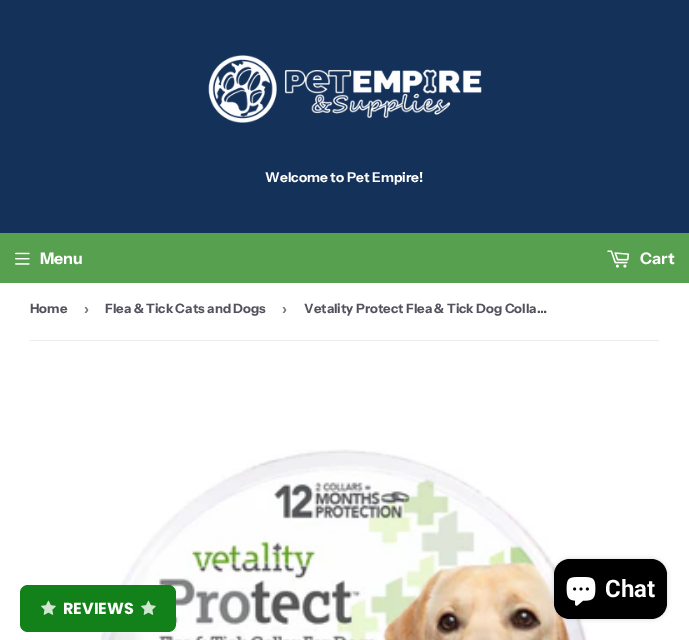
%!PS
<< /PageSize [689 640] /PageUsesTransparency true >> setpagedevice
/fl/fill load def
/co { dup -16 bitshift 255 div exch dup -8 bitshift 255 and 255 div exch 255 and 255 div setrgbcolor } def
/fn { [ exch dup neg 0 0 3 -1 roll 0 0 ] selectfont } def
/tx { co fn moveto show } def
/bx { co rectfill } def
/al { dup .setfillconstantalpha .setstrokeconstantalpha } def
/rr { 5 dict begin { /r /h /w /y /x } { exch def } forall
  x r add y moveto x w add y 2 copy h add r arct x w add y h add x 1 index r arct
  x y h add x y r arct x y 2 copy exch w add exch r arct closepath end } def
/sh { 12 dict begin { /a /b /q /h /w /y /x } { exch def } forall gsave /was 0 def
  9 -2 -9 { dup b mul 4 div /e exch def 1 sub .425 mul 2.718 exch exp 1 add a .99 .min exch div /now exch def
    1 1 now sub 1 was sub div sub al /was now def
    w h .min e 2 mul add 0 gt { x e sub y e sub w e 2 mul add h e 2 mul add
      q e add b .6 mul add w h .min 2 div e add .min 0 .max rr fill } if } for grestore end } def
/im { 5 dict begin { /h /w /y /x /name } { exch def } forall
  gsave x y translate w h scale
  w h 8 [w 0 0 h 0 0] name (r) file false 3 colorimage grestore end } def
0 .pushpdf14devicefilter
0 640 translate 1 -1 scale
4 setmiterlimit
0 0 689 640 16#FFFFFF bx
0 0 689 233 16#14315A bx
(media/1.raw) 208 55 274 68 im
0 233 689 50 16#57A04F bx
(media/2.raw) 15 252 15 13 im
(media/3.raw) 607 250 23 18 im
30 340 629 1 16#ECECEC bx
(media/4.raw) 100 449 488 191 im
16#000000 co
554 559 113 60 16 2.5 .15 sh
554 559 113 60 16 rr fl
(media/5.raw) 566 577 30 29 im
16#128119 co
20 585 156 47 8 rr fl
(media/6.raw) 41 600 15 15 im
(media/6.raw) 141 600 15 15 im
(Welcome to Pet Empire!) 265 182 /InstrumentSans-Bold 13.6 16#FFFFFF tx
(Menu) 40 264 /InstrumentSans-Bold 16 16#FFFFFF tx
(Cart) 640 264 /InstrumentSans-Bold 16 16#FFFFFF tx
(Home) 30 313 /InstrumentSans-Bold 13 16#51525C tx
(›) 84 314 /LiberationSans-Bold 15 16#767676 tx
(Flea & Tick Cats and Dogs) 105 313 /InstrumentSans-Bold 13 16#51525C tx
(›) 282 314 /LiberationSans-Bold 15 16#767676 tx
(Vetality Protect Flea & Tick Dog Colla…) 304 313 /InstrumentSans-Bold 13 16#51525C tx
(Chat) 605 597 /Roboto-Bold 24 16#FFFFFF tx
(REVIEWS) 63 614 /Poppins-Bold 16 16#FFFFFF tx
.poppdf14devicefilter showpage
